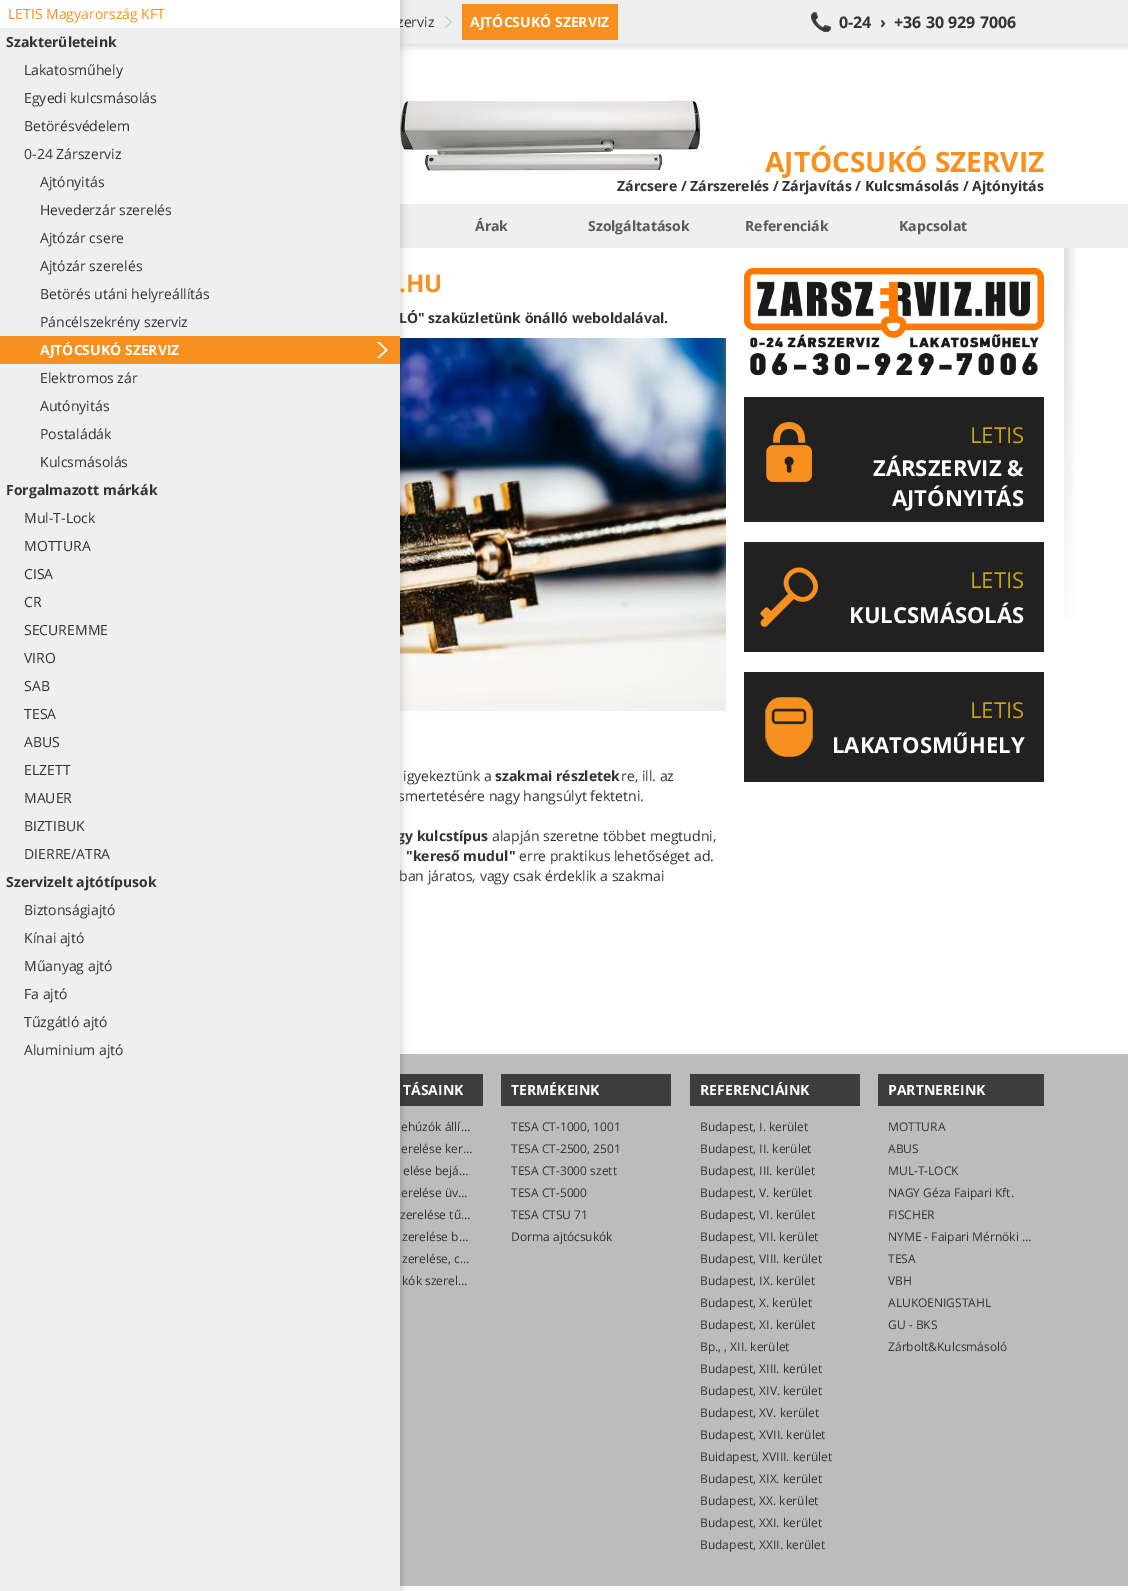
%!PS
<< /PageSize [1128 1591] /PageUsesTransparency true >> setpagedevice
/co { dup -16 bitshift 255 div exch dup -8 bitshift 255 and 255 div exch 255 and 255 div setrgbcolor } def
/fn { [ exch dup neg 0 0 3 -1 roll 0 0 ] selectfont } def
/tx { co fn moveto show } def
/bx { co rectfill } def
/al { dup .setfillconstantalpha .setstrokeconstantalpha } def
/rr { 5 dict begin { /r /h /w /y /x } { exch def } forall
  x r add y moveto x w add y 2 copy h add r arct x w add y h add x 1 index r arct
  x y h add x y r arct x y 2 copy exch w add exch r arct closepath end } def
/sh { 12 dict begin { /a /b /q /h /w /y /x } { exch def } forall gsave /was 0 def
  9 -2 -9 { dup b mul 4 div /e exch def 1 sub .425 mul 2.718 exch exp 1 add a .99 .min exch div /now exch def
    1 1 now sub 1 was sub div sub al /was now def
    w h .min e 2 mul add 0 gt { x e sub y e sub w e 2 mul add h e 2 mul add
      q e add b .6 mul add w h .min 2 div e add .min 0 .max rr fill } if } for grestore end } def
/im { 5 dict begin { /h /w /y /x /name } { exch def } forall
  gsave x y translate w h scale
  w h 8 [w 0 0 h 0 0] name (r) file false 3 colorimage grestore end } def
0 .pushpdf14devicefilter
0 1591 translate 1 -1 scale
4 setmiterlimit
0 0 1128 1591 16#FFFFFF bx
(media/2.raw) 400 338 326 373 im
(media/10.raw) 400 56 304 136 im
16#000000 co
1 2 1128 44 0 4 .15 sh
400 0 728 44 16#EFEFEF bx
400 204 728 44 16#EFEFEF bx
400 1054 728 532 16#BCBCBC bx
400 1074 83 32 16#3D3D3D bx
16#000000 co
1 0 400 1591 0 4 .2 sh
(media/3.raw) 744 268 300 107 im
744 397 300 125 16#212121 bx
(media/4.raw) 766 422 46 60 im
744 542 300 110 16#212121 bx
(media/5.raw) 760 567 58 60 im
744 672 300 110 16#212121 bx
(media/6.raw) 765 697 48 60 im
(media/7.raw) 1064 248 15 373 im
(media/8.raw) 445 16 7 12 im
462 4 156 36 16#F7901E bx
811 12 21 20 16#333333 bx
(media/9.raw) 807 4 217 36 im
501 1074 170 32 16#3D3D3D bx
690 1074 170 32 16#3D3D3D bx
878 1074 166 32 16#3D3D3D bx
(.HU) 399 292 /OpenSans-Bold 24 16#F7901E tx
(LÓ" szaküzletünk önálló weboldalával.) 399 323 /OpenSans-Bold 14 16#333333 tx
(igyekeztünk a) 403 781 /OpenSans-Regular 14 16#333333 tx
(szakmai részletek) 495 781 /OpenSans-Bold 14 16#333333 tx
(re, ill. az) 621 781 /OpenSans-Regular 14 16#333333 tx
(smertetésére nagy hangsúlyt fektetni.) 398 801 /OpenSans-Regular 14 16#333333 tx
(gy kulcstípus) 397 841 /OpenSans-Bold 14 16#333333 tx
0 28 400 1563 16#EFEFEF bx
(Aluminium ajtó) 24 1055 /OpenSans-Regular 14 16#333333 tx
(Tűzgátló ajtó) 24 1027 /OpenSans-Regular 14 16#333333 tx
(Fa ajtó) 24 999 /OpenSans-Regular 14 16#333333 tx
(Műanyag ajtó) 24 971 /OpenSans-Regular 14 16#333333 tx
(Kínai ajtó) 24 943 /OpenSans-Regular 14 16#333333 tx
(Biztonságiajtó) 24 915 /OpenSans-Regular 14 16#333333 tx
(Szervizelt ajtótípusok) 6 887 /OpenSans-Bold 14 16#333333 tx
(DIERRE/ATRA) 24 859 /OpenSans-Regular 14 16#333333 tx
(BIZTIBUK) 24 831 /OpenSans-Regular 14 16#333333 tx
(MAUER) 24 803 /OpenSans-Regular 14 16#333333 tx
(ELZETT) 24 775 /OpenSans-Regular 14 16#333333 tx
(ABUS) 24 747 /OpenSans-Regular 14 16#333333 tx
(TESA) 24 719 /OpenSans-Regular 14 16#333333 tx
(SAB) 24 691 /OpenSans-Regular 14 16#333333 tx
(VIRO) 24 663 /OpenSans-Regular 14 16#333333 tx
(SECUREMME) 24 635 /OpenSans-Regular 14 16#333333 tx
(CR) 24 607 /OpenSans-Regular 14 16#333333 tx
(CISA) 24 579 /OpenSans-Regular 14 16#333333 tx
(MOTTURA) 24 551 /OpenSans-Regular 14 16#333333 tx
(Mul-T-Lock) 24 523 /OpenSans-Regular 14 16#333333 tx
(Forgalmazott márkák) 6 495 /OpenSans-Bold 14 16#333333 tx
(Kulcsmásolás) 40 467 /OpenSans-Regular 14 16#333333 tx
(Postaládák) 40 439 /OpenSans-Regular 14 16#333333 tx
(Autónyitás) 40 411 /OpenSans-Regular 14 16#333333 tx
(Elektromos zár) 40 383 /OpenSans-Regular 14 16#333333 tx
0 336 400 28 16#F7901E bx
(AJTÓCSUKÓ SZERVIZ) 40 355 /OpenSans-Bold 14 16#FFFFFF tx
(Páncélszekrény szerviz) 40 327 /OpenSans-Regular 14 16#333333 tx
(Betörés utáni helyreállítás) 40 299 /OpenSans-Regular 14 16#333333 tx
(Ajtózár szerelés) 40 271 /OpenSans-Regular 14 16#333333 tx
(Ajtózár csere) 40 243 /OpenSans-Regular 14 16#333333 tx
(Hevederzár szerelés) 40 215 /OpenSans-Regular 14 16#333333 tx
(Ajtónyitás) 40 187 /OpenSans-Regular 14 16#333333 tx
(0-24 Zárszerviz) 24 159 /OpenSans-Regular 14 16#333333 tx
(Betörésvédelem) 24 131 /OpenSans-Regular 14 16#333333 tx
(Egyedi kulcsmásolás) 24 103 /OpenSans-Regular 14 16#333333 tx
(Lakatosműhely) 24 75 /OpenSans-Regular 14 16#333333 tx
(Szakterületeink) 6 47 /OpenSans-Bold 14 16#333333 tx
(media/1.raw) 377 342 11 16 im
(alapján szeretne többet megtudni,) 492 841 /OpenSans-Regular 14 16#333333 tx
("kereső mudul") 406 861 /OpenSans-Bold 14 16#333333 tx
(erre praktikus lehetőséget ad.) 519 861 /OpenSans-Regular 14 16#333333 tx
(ban járatos, vagy csak érdeklik a szakmai) 399 881 /OpenSans-Regular 14 16#333333 tx
(LETIS) 970 443 /OpenSans-Regular 22 16#CBA212 tx
(ZÁRSZERVIZ &) 873 476 /OpenSans-Bold 22 16#FFFFFF tx
(AJTÓNYITÁS) 892 506 /OpenSans-Bold 22 16#FFFFFF tx
(LETIS) 970 588 /OpenSans-Regular 22 16#CBA212 tx
(KULCSMÁSOLÁS) 849 623 /OpenSans-Bold 22 16#FFFFFF tx
(LETIS) 970 718 /OpenSans-Regular 22 16#CBA212 tx
(LAKATOSMŰHELY) 832 753 /OpenSans-Bold 22 16#FFFFFF tx
(zerviz) 397 27 /OpenSans-Regular 14 16#333333 tx
0 0 400 28 16#FFFFFF bx
(LETIS Magyarország KFT) 8 19 /OpenSans-Regular 14 16#F7901E tx
(AJTÓCSUKÓ SZERVIZ) 470 27 /OpenSans-Bold 14 16#FFFFFF tx
(0-24  ›  +36 30 929 7006) 839 28 /OpenSans-Bold 16 16#333333 tx
(AJTÓCSUKÓ SZERVIZ) 765 172 /OpenSans-Bold 28 16#F7901E tx
(Zárcsere / Zárszerelés / Zárjavítás / Kulcsmásolás / Ajtónyitás) 617 191 /OpenSans-Bold 14 16#333333 tx
(Árak) 475 231 /OpenSans-Bold 14 16#595959 tx
(Szolgáltatások) 588 231 /OpenSans-Bold 14 16#595959 tx
(Referenciák) 745 231 /OpenSans-Bold 14 16#595959 tx
(Kapcsolat) 899 231 /OpenSans-Bold 14 16#595959 tx
(TÁSAINK) 403 1095 /OpenSans-Bold 14 16#FFFFFF tx
(ehúzók állí…) 401 1131 /OpenSans-Regular 12 16#333333 tx
(erelése ker…) 401 1153 /OpenSans-Regular 12 16#333333 tx
(elése bejá…) 403 1175 /OpenSans-Regular 12 16#333333 tx
(erelése üv…) 401 1197 /OpenSans-Regular 12 16#333333 tx
(zerelése tű…) 400 1219 /OpenSans-Regular 12 16#333333 tx
(zerelése b…) 402 1241 /OpenSans-Regular 12 16#333333 tx
(zerelése, c…) 402 1263 /OpenSans-Regular 12 16#333333 tx
(kók szerel…) 402 1285 /OpenSans-Regular 12 16#333333 tx
(TERMÉKEINK) 511 1095 /OpenSans-Bold 14 16#FFFFFF tx
(TESA CT-1000, 1001) 511 1131 /OpenSans-Regular 12 16#333333 tx
(TESA CT-2500, 2501) 511 1153 /OpenSans-Regular 12 16#333333 tx
(TESA CT-3000 szett) 511 1175 /OpenSans-Regular 12 16#333333 tx
(TESA CT-5000) 511 1197 /OpenSans-Regular 12 16#333333 tx
(TESA CTSU 71) 511 1219 /OpenSans-Regular 12 16#333333 tx
(Dorma ajtócsukók) 511 1241 /OpenSans-Regular 12 16#333333 tx
(REFERENCIÁINK) 700 1095 /OpenSans-Bold 14 16#FFFFFF tx
(Budapest, I. kerület) 700 1131 /OpenSans-Regular 12 16#333333 tx
(Budapest, II. kerület) 700 1153 /OpenSans-Regular 12 16#333333 tx
(Budapest, III. kerület) 700 1175 /OpenSans-Regular 12 16#333333 tx
(Budapest, V. kerület) 700 1197 /OpenSans-Regular 12 16#333333 tx
(Budapest, VI. kerület) 700 1219 /OpenSans-Regular 12 16#333333 tx
(Budapest, VII. kerület) 700 1241 /OpenSans-Regular 12 16#333333 tx
(Budapest, VIII. kerület) 700 1263 /OpenSans-Regular 12 16#333333 tx
(Budapest, IX. kerület) 700 1285 /OpenSans-Regular 12 16#333333 tx
(Budapest, X. kerület) 700 1307 /OpenSans-Regular 12 16#333333 tx
(Budapest, XI. kerület) 700 1329 /OpenSans-Regular 12 16#333333 tx
(Bp., , XII. kerület) 700 1351 /OpenSans-Regular 12 16#333333 tx
(Budapest, XIII. kerület) 700 1373 /OpenSans-Regular 12 16#333333 tx
(Budapest, XIV. kerület) 700 1395 /OpenSans-Regular 12 16#333333 tx
(Budapest, XV. kerület) 700 1417 /OpenSans-Regular 12 16#333333 tx
(Budapest, XVII. kerület) 700 1439 /OpenSans-Regular 12 16#333333 tx
(Buidapest, XVIII. kerület) 700 1461 /OpenSans-Regular 12 16#333333 tx
(Budapest, XIX. kerület) 700 1483 /OpenSans-Regular 12 16#333333 tx
(Budapest, XX. kerület) 700 1505 /OpenSans-Regular 12 16#333333 tx
(Budapest, XXI. kerület) 700 1527 /OpenSans-Regular 12 16#333333 tx
(Budapest, XXII. kerület) 700 1549 /OpenSans-Regular 12 16#333333 tx
(PARTNEREINK) 888 1095 /OpenSans-Bold 14 16#FFFFFF tx
(MOTTURA) 888 1131 /OpenSans-Regular 12 16#333333 tx
(ABUS) 888 1153 /OpenSans-Regular 12 16#333333 tx
(MUL-T-LOCK) 888 1175 /OpenSans-Regular 12 16#333333 tx
(NAGY Géza Faipari Kft.) 888 1197 /OpenSans-Regular 12 16#333333 tx
(FISCHER) 888 1219 /OpenSans-Regular 12 16#333333 tx
(NYME - Faipari Mérnöki …) 888 1241 /OpenSans-Regular 12 16#333333 tx
(TESA) 888 1263 /OpenSans-Regular 12 16#333333 tx
(VBH) 888 1285 /OpenSans-Regular 12 16#333333 tx
(ALUKOENIGSTAHL) 888 1307 /OpenSans-Regular 12 16#333333 tx
(GU - BKS) 888 1329 /OpenSans-Regular 12 16#333333 tx
(Zárbolt&Kulcsmásoló) 888 1351 /OpenSans-Regular 12 16#333333 tx
.poppdf14devicefilter showpage
